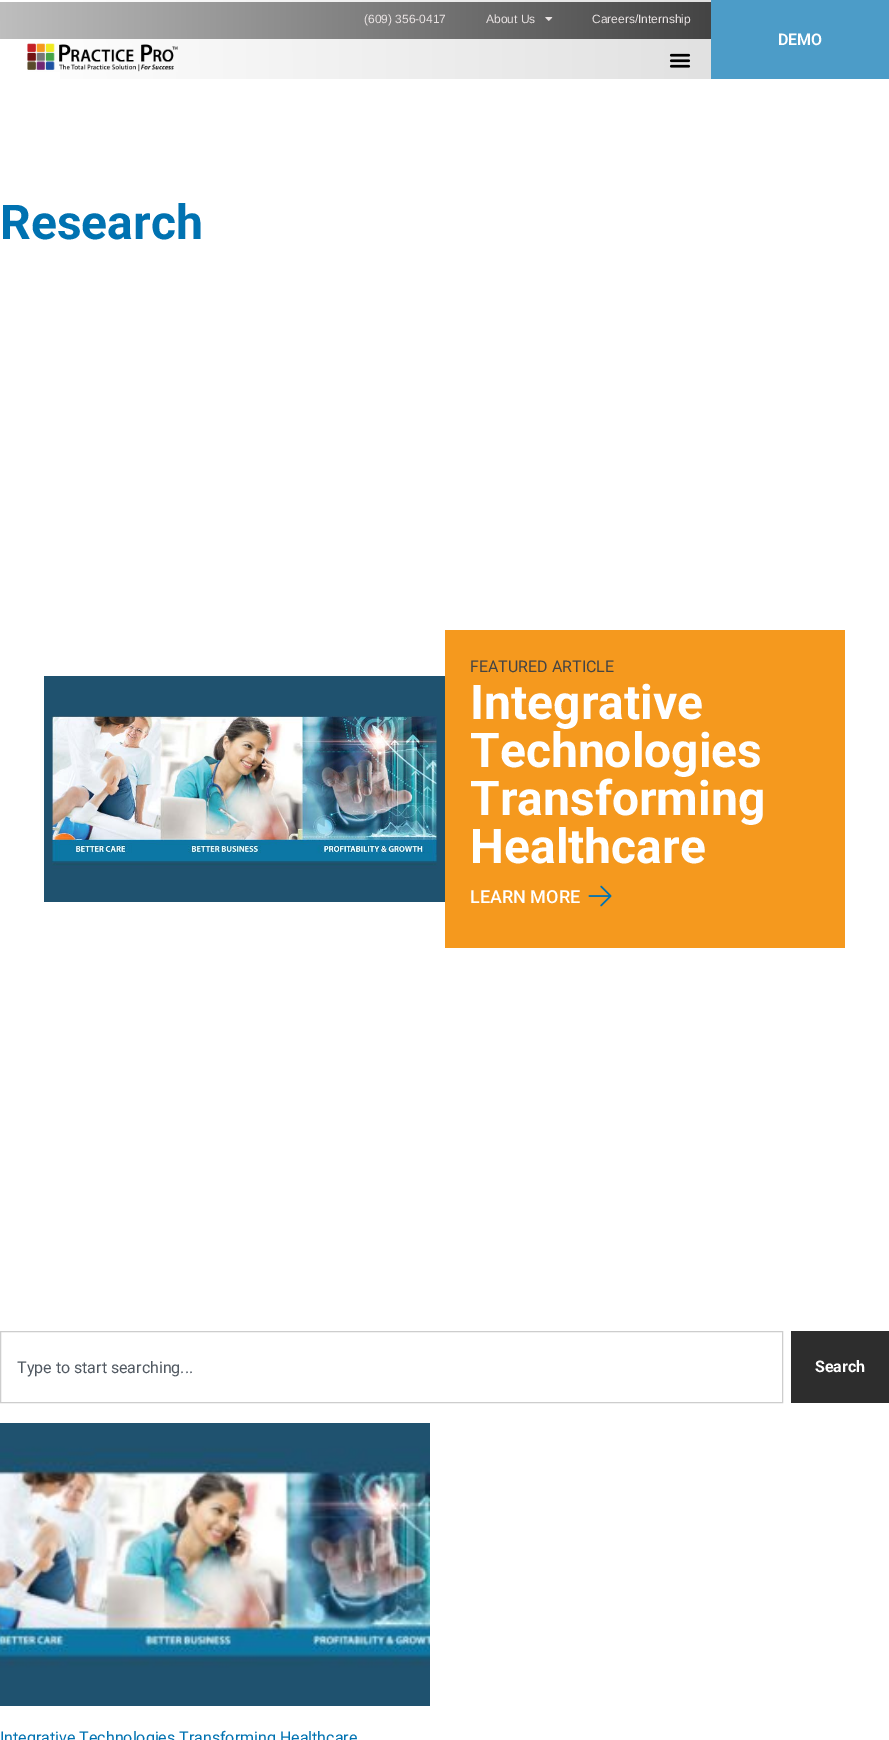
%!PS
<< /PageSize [889 1740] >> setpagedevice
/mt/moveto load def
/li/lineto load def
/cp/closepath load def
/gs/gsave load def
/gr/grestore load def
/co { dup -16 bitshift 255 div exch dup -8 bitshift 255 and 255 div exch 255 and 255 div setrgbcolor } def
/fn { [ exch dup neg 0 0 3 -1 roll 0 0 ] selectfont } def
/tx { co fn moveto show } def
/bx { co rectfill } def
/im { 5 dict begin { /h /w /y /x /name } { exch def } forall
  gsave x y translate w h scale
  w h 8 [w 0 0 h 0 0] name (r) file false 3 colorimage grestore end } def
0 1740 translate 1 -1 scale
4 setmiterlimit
0 0 889 1740 16#FFFFFF bx
gs 60 0 mt 711 0 li 711 79 li 60 79 li cp clip newpath
<< /ShadingType 2 /ColorSpace /DeviceRGB /Coords [0 40 889 39] /Extend [true true] /Function << /FunctionType 2 /Domain [0 1] /C0 [1 1 1] /C1 [.855 .855 .855] /N 1 >> >> shfill gr
gs 0 2 mt 711 2 li 711 39 li 0 39 li cp clip newpath
<< /ShadingType 2 /ColorSpace /DeviceRGB /Coords [0 21 711 20] /Extend [true true] /Function << /FunctionType 2 /Domain [0 1] /C0 [.745 .745 .745] /C1 [.267 .267 .267] /N 1 >> >> shfill gr
(media/1.raw) 545 17 8 4 im
(media/2.raw) 27 43 151 29 im
(media/3.raw) 669 53 22 15 im
711 0 178 79 16#4C9CC8 bx
(media/4.raw) 44 676 401 226 im
445 630 400 318 16#F5991E bx
(media/5.raw) 588 885 24 22 im
16#CDCDCD co
.5 1331.5 782 71 rectstroke
791 1331 98 72 16#2D2D2D bx
(media/6.raw) 0 1423 430 283 im
(\(609\) 356-0417) 364 23 /LiberationSans-Regular 12 16#E9E3E3 tx
(About Us) 486 23 /LiberationSans-Regular 12 16#E9E3E3 tx
(Careers/Internship) 592 23 /LiberationSans-Regular 12 16#E9E3E3 tx
(DEMO) 778 45 /Roboto-SemiBold 16 16#FFFFFF tx
(Research) 0 239 /Roboto-Bold 48 16#0072B1 tx
(FEATURED ARTICLE) 470 672 /Roboto-Regular 16 16#444444 tx
(Integrative) 470 719 /Roboto-Bold 48 16#FFFFFF tx
(Technologies) 470 767 /Roboto-Bold 48 16#FFFFFF tx
(Transforming) 470 815 /Roboto-Bold 48 16#FFFFFF tx
(Healthcare) 470 863 /Roboto-Bold 48 16#FFFFFF tx
(LEARN MORE) 470 903 /Roboto-Medium 18 16#FFFFFF tx
(Type to start searching...) 17 1373 /Roboto-Regular 16 16#515962 tx
(Search) 815 1372 /Roboto-Bold 16 16#FFFFFF tx
(Integrative Technologies Transforming Healthcare) 0 1743 /Roboto-Regular 16 16#0072B1 tx
showpage
